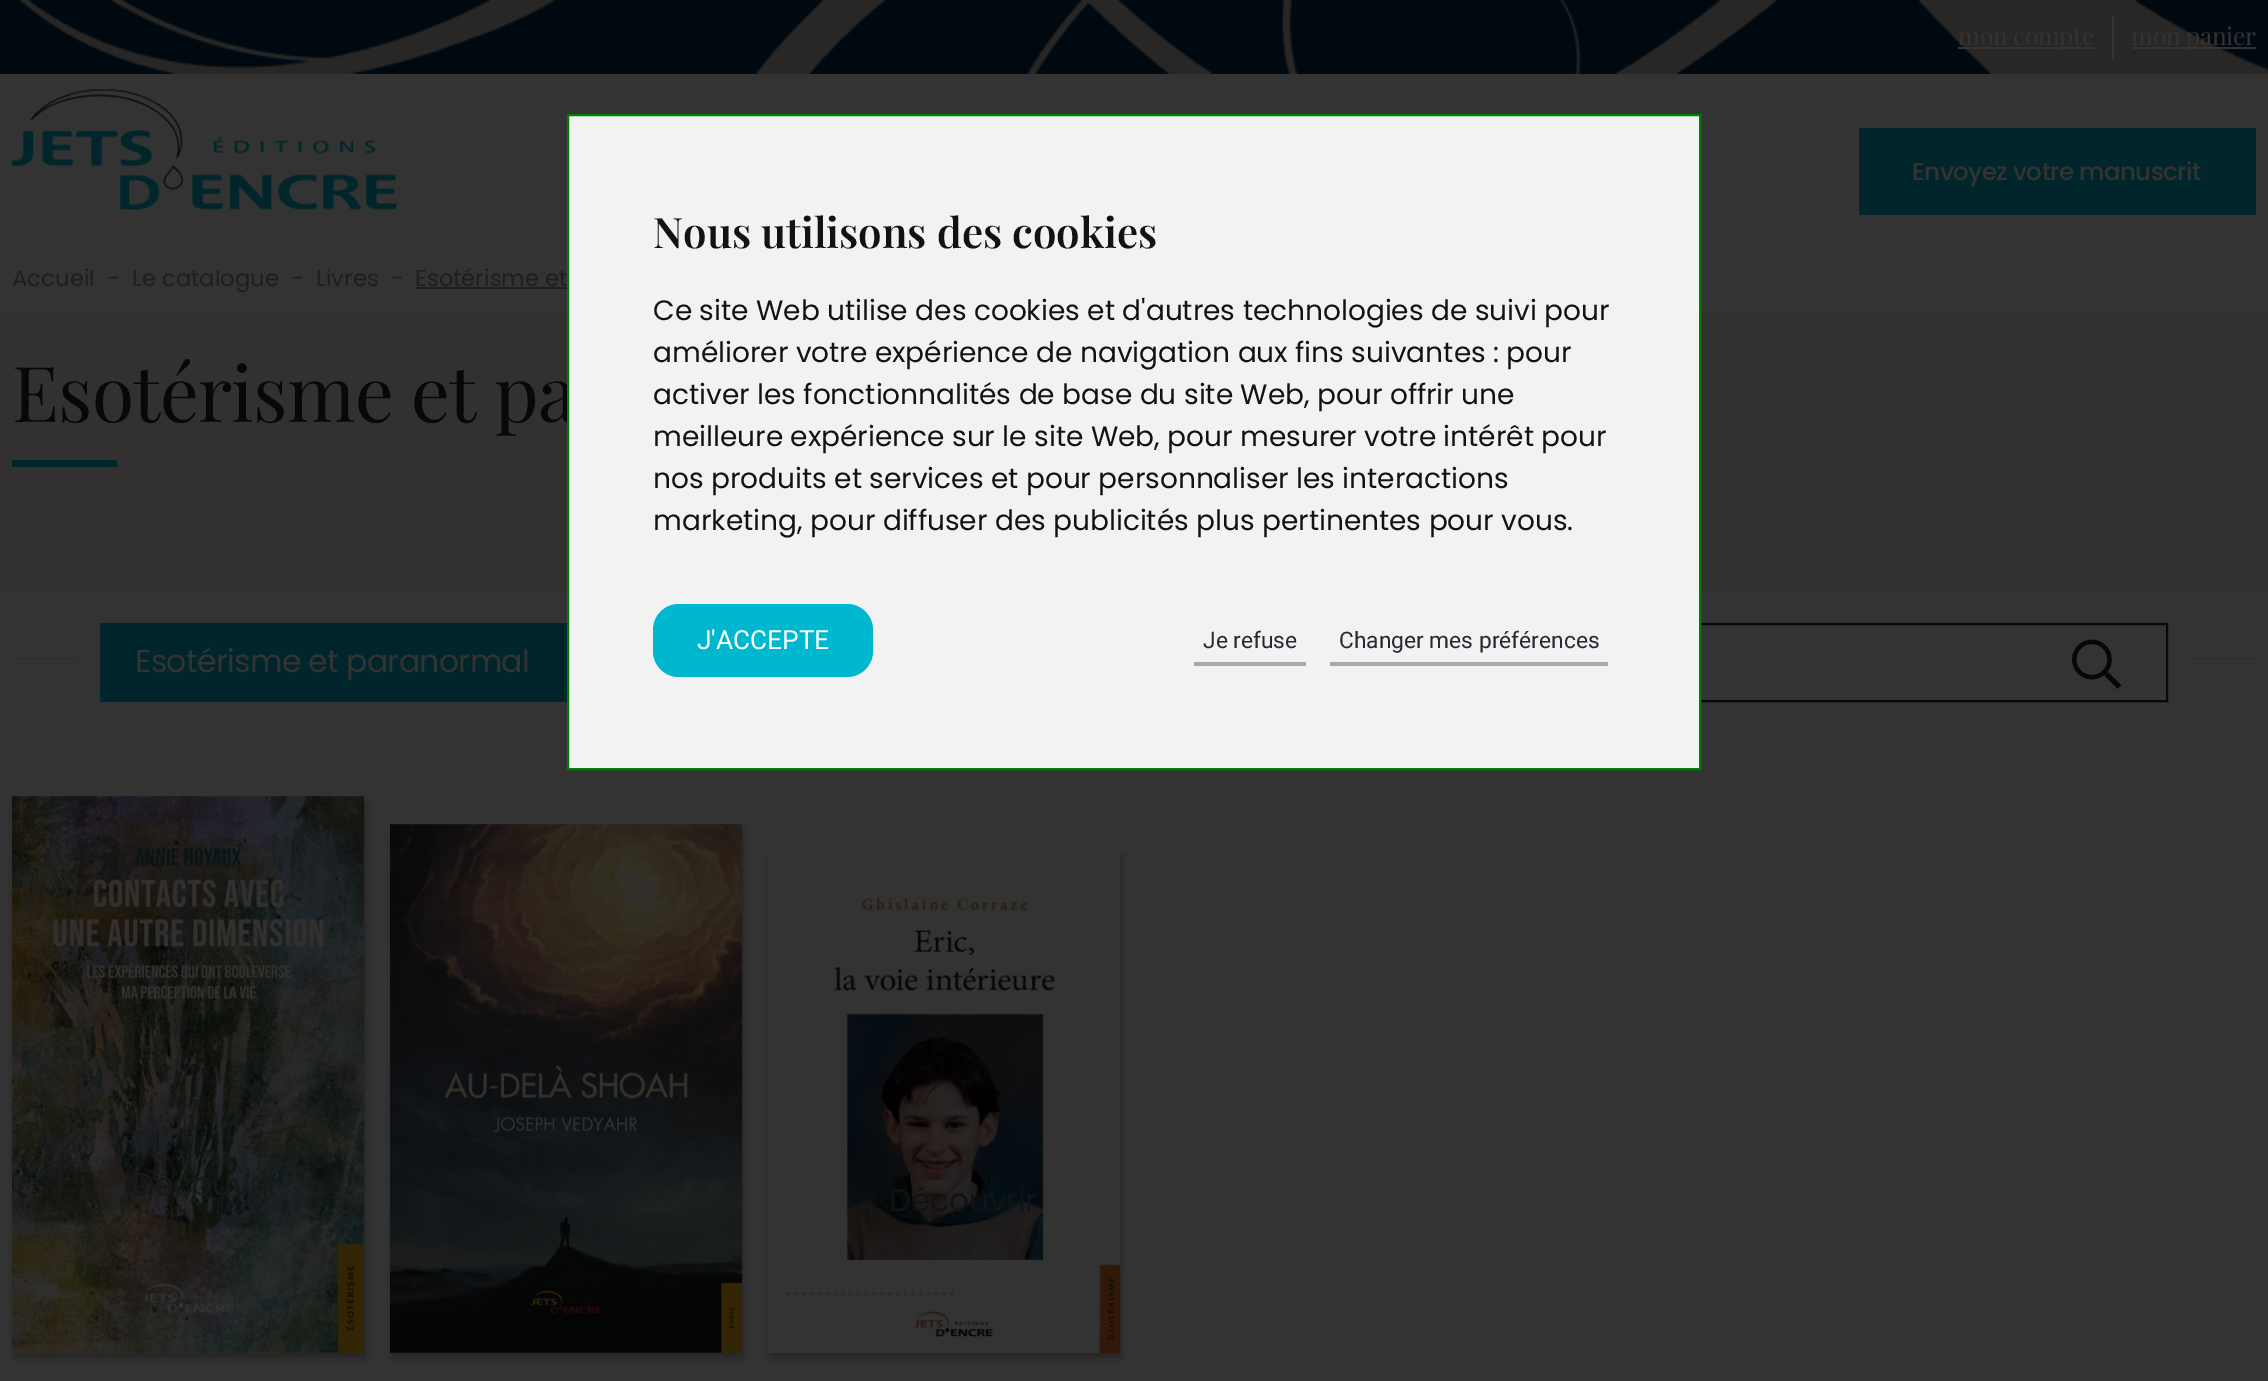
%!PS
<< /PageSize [2268 1381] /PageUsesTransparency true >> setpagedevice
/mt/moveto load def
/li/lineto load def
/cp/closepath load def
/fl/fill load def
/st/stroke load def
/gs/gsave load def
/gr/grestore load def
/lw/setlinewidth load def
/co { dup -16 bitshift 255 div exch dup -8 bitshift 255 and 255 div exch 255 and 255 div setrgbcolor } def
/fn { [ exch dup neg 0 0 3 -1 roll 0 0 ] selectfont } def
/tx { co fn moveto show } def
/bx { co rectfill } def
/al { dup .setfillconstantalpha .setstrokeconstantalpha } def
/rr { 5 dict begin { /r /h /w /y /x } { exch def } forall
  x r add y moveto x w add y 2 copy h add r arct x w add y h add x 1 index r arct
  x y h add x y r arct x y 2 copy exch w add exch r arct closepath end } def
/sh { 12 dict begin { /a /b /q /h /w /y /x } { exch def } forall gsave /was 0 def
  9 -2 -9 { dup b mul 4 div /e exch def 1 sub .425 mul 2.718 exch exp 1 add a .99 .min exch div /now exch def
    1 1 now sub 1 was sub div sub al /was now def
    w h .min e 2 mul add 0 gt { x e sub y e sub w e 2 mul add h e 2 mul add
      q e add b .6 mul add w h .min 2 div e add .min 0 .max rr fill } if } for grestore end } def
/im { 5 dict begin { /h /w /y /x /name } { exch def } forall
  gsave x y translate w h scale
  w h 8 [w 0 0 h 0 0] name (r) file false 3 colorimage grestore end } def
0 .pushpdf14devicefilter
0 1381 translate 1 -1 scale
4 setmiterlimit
0 0 2268 1381 16#333333 bx
(media/1.raw) 0 0 2268 74 im
1958 47 137 2 16#333333 bx
2112 16 2 44 16#333333 bx
2132 47 124 2 16#333333 bx
(media/2.raw) 12 89 386 121 im
1859 128 397 87 16#00252A bx
415 287 152 2 16#1E1E1E bx
0 310 2268 282 16#323130 bx
12 460 105 7 16#00252A bx
12 658 2244 2 16#2F2F2F bx
100 623 467 79 16#00252A bx
77 658 23 2 16#333333 bx
1701 658 488 2 16#333333 bx
16#08080B co
2 lw
1172 624 995 77 rectstroke
(media/3.raw) 2072 639 49 50 im
16#000000 co
14 802 352 556 0 3.5 .25 sh
(media/4.raw) 12 796 352 557 im
392 830 352 528 0 3.5 .25 sh
(media/5.raw) 390 824 352 529 im
gs
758 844 mt 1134 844 li 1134 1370 li 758 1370 li cp 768 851 mt 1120 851 li 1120 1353 li 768 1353 li cp eoclip newpath
770 856 352 502 0 3.5 .25 sh
gr
(media/6.raw) 768 858 353 495 im
/PlayfairDisplay-Regular 24.5 fn
16#333333 co
1958 45 mt -.25 0 (mon compte) ashow
2131 45 mt -.25 0 (mon panier) ashow
/Poppins-Medium 24.5 fn
1912 180 mt -.6 0 (Envoyez votre manuscrit) ashow
(Accueil) 12 286 /Poppins-Regular 22.75 16#1E1E1E tx
(-) 107 286 /Poppins-Regular 22.75 16#1E1E1E tx
(Le catalogue) 132 286 /Poppins-Regular 22.75 16#1E1E1E tx
(-) 291 286 /Poppins-Regular 22.75 16#1E1E1E tx
(Livres) 316 286 /Poppins-Regular 22.75 16#1E1E1E tx
(-) 391 286 /Poppins-Regular 22.75 16#1E1E1E tx
(Esotérisme et) 415 286 /Poppins-Regular 22.75 16#1E1E1E tx
/PlayfairDisplay-Regular 77 fn
16#08080B co
12 422 mt -.75 0 (Esotérisme et pa) ashow
/Poppins-Regular 31.5 fn
16#333333 co
135 672 mt -.6 0 (Esotérisme et paranormal) ashow
16#161A19 co
132 1195 mt -.25 0 (Découvrir) ashow
16#101314 co
889 1211 mt -.25 0 (Découvrir) ashow
16#F2F2F2 co
568 115 mt 1700 115 li 1700 769 li 568 769 li cp gs fl gr
16#008000 co
st
(Nous utilisons des cookies) 653 248 /PlayfairDisplay-SemiBold 42 16#101314 tx
(Ce site Web utilise des cookies et d'autres technologies de suivi pour) 653 320 /Poppins-Regular 28 16#101314 tx
(améliorer votre expérience de navigation aux fins suivantes : pour) 653 362 /Poppins-Regular 28 16#101314 tx
(activer les fonctionnalités de base du site Web, pour offrir une) 653 404 /Poppins-Regular 28 16#101314 tx
(meilleure expérience sur le site Web, pour mesurer votre intérêt pour) 653 446 /Poppins-Regular 28 16#101314 tx
(nos produits et services et pour personnaliser les interactions) 653 488 /Poppins-Regular 28 16#101314 tx
(marketing, pour diffuser des publicités plus pertinentes pour vous.) 653 530 /Poppins-Regular 28 16#101314 tx
16#00B7D0 co
653 604 220 73 26 rr fl
(J'ACCEPTE) 697 649 /Roboto-Regular 26.25 16#FFFFFF tx
(Je refuse) 1203 648 /Roboto-Regular 22.75 16#272935 tx
1194 662 112 4 16#AAAAAA bx
(Changer mes préférences) 1339 648 /Roboto-Regular 22.75 16#272935 tx
1330 662 278 4 16#AAAAAA bx
.poppdf14devicefilter showpage
